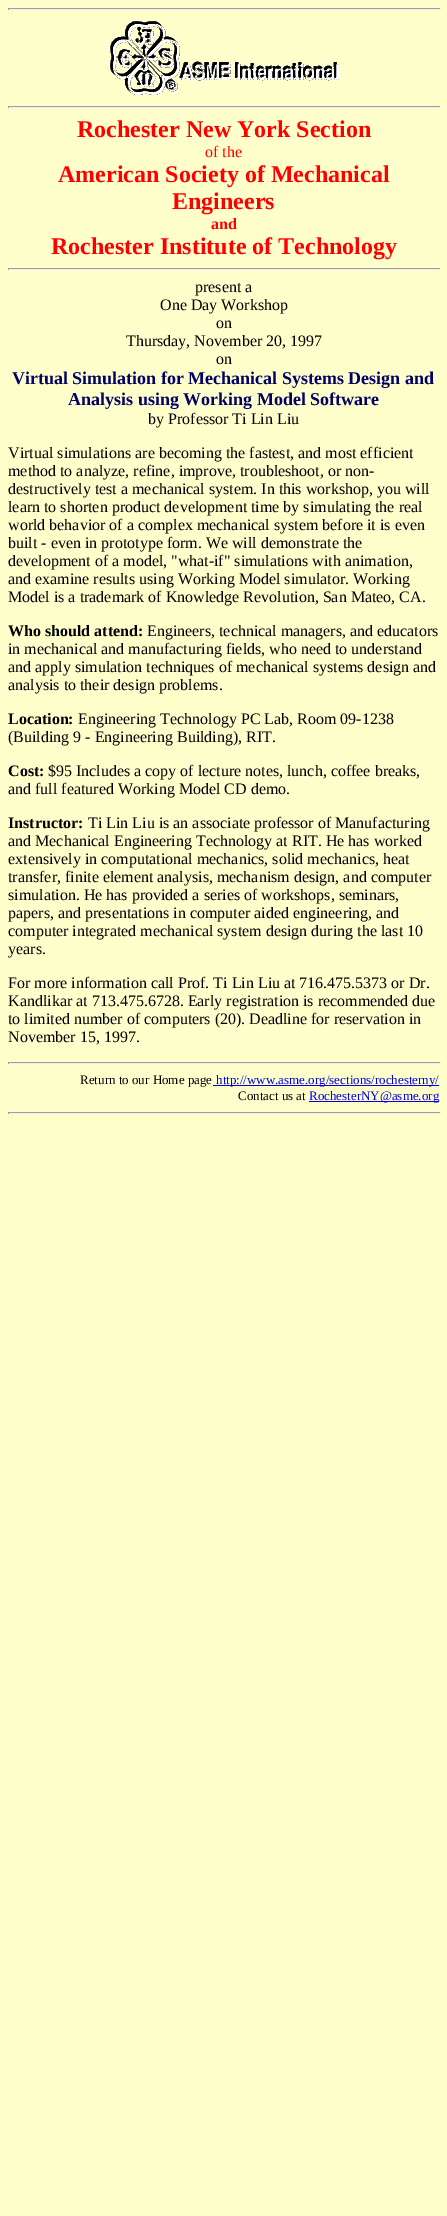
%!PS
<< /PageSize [447 2216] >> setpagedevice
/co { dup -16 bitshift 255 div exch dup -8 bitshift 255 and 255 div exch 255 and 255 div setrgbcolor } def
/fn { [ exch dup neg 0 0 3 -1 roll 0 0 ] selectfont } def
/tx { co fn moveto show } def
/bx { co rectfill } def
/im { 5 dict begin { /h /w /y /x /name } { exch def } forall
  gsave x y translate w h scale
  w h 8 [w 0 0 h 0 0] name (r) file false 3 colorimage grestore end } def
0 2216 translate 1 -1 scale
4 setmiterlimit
0 0 447 2216 16#FFFFCC bx
8 8 433 1 16#9F9F9F bx
440 8 1 2 16#EEEEEE bx
8 9 433 1 16#EEEEEE bx
8 8 1 2 16#9F9F9F bx
(media/1.raw) 110 21 229 74 im
8 106 433 1 16#9F9F9F bx
440 106 1 2 16#EEEEEE bx
8 107 433 1 16#EEEEEE bx
8 106 1 2 16#9F9F9F bx
8 268 433 1 16#9F9F9F bx
440 268 1 2 16#EEEEEE bx
8 269 433 1 16#EEEEEE bx
8 268 1 2 16#9F9F9F bx
8 1062 433 1 16#9F9F9F bx
440 1062 1 2 16#EEEEEE bx
8 1063 433 1 16#EEEEEE bx
8 1062 1 2 16#9F9F9F bx
213 1085 226 1 16#0000EE bx
309 1101 130 1 16#0000EE bx
8 1112 433 1 16#9F9F9F bx
440 1112 1 2 16#EEEEEE bx
8 1113 433 1 16#EEEEEE bx
8 1112 1 2 16#9F9F9F bx
(Rochester New York Section) 77 137 /LiberationSerif-Bold 24 16#FF0000 tx
(of the) 205 157 /LiberationSerif-Regular 16 16#FF0000 tx
(American Society of Mechanical) 58 182 /LiberationSerif-Bold 24 16#FF0000 tx
(Engineers) 172 209 /LiberationSerif-Bold 24 16#FF0000 tx
(and) 211 229 /LiberationSerif-Bold 16 16#FF0000 tx
(Rochester Institute of Technology) 51 254 /LiberationSerif-Bold 24 16#FF0000 tx
(present a) 195 292 /LiberationSerif-Regular 16 16#000000 tx
(One Day Workshop) 160 310 /LiberationSerif-Regular 16 16#000000 tx
(on) 216 328 /LiberationSerif-Regular 16 16#000000 tx
(Thursday, November 20, 1997) 126 346 /LiberationSerif-Regular 16 16#000000 tx
(on) 216 364 /LiberationSerif-Regular 16 16#000000 tx
(Virtual Simulation for Mechanical Systems Design and) 12 384 /LiberationSerif-Bold 18 16#000066 tx
(Analysis using Working Model Software) 68 405 /LiberationSerif-Bold 18 16#000066 tx
(by Professor Ti Lin Liu) 148 424 /LiberationSerif-Regular 16 16#000000 tx
(Virtual simulations are becoming the fastest, and most efficient) 8 458 /LiberationSerif-Regular 16 16#000000 tx
(method to analyze, refine, improve, troubleshoot, or non-) 8 476 /LiberationSerif-Regular 16 16#000000 tx
(destructively test a mechanical system. In this workshop, you will) 8 494 /LiberationSerif-Regular 16 16#000000 tx
(learn to shorten product development time by simulating the real) 8 512 /LiberationSerif-Regular 16 16#000000 tx
(world behavior of a complex mechanical system before it is even) 8 530 /LiberationSerif-Regular 16 16#000000 tx
(built - even in prototype form. We will demonstrate the) 8 548 /LiberationSerif-Regular 16 16#000000 tx
(development of a model, "what-if" simulations with animation,) 8 566 /LiberationSerif-Regular 16 16#000000 tx
(and examine results using Working Model simulator. Working) 8 584 /LiberationSerif-Regular 16 16#000000 tx
(Model is a trademark of Knowledge Revolution, San Mateo, CA.) 8 602 /LiberationSerif-Regular 16 16#000000 tx
(Who should attend:) 8 636 /LiberationSerif-Bold 16 16#000000 tx
(Engineers, technical managers, and educators) 147 636 /LiberationSerif-Regular 16 16#000000 tx
(in mechanical and manufacturing fields, who need to understand) 8 654 /LiberationSerif-Regular 16 16#000000 tx
(and apply simulation techniques of mechanical systems design and) 8 672 /LiberationSerif-Regular 16 16#000000 tx
(analysis to their design problems.) 8 690 /LiberationSerif-Regular 16 16#000000 tx
(Location:) 8 724 /LiberationSerif-Bold 16 16#000000 tx
(Engineering Technology PC Lab, Room 09-1238) 78 724 /LiberationSerif-Regular 16 16#000000 tx
(\(Building 9 - Engineering Building\), RIT.) 8 742 /LiberationSerif-Regular 16 16#000000 tx
(Cost:) 8 776 /LiberationSerif-Bold 16 16#000000 tx
($95 Includes a copy of lecture notes, lunch, coffee breaks,) 48 776 /LiberationSerif-Regular 16 16#000000 tx
(and full featured Working Model CD demo.) 8 794 /LiberationSerif-Regular 16 16#000000 tx
(Instructor:) 8 828 /LiberationSerif-Bold 16 16#000000 tx
(Ti Lin Liu is an associate professor of Manufacturing) 88 828 /LiberationSerif-Regular 16 16#000000 tx
(and Mechanical Engineering Technology at RIT. He has worked) 8 846 /LiberationSerif-Regular 16 16#000000 tx
(extensively in computational mechanics, solid mechanics, heat) 8 864 /LiberationSerif-Regular 16 16#000000 tx
(transfer, finite element analysis, mechanism design, and computer) 8 882 /LiberationSerif-Regular 16 16#000000 tx
(simulation. He has provided a series of workshops, seminars,) 8 900 /LiberationSerif-Regular 16 16#000000 tx
(papers, and presentations in computer aided engineering, and) 8 918 /LiberationSerif-Regular 16 16#000000 tx
(computer integrated mechanical system design during the last 10) 8 936 /LiberationSerif-Regular 16 16#000000 tx
(years.) 8 954 /LiberationSerif-Regular 16 16#000000 tx
(For more information call Prof. Ti Lin Liu at 716.475.5373 or Dr.) 8 988 /LiberationSerif-Regular 16 16#000000 tx
(Kandlikar at 713.475.6728. Early registration is recommended due) 8 1006 /LiberationSerif-Regular 16 16#000000 tx
(to limited number of computers \(20\). Deadline for reservation in) 8 1024 /LiberationSerif-Regular 16 16#000000 tx
(November 15, 1997.) 8 1042 /LiberationSerif-Regular 16 16#000000 tx
(Return to our Home page) 80 1084 /LiberationSerif-Regular 13 16#000000 tx
(http://www.asme.org/sections/rochesterny/) 216 1084 /LiberationSerif-Regular 13 16#0000EE tx
(Contact us at) 238 1100 /LiberationSerif-Regular 13 16#000000 tx
(RochesterNY@asme.org) 309 1100 /LiberationSerif-Regular 13 16#0000EE tx
showpage
